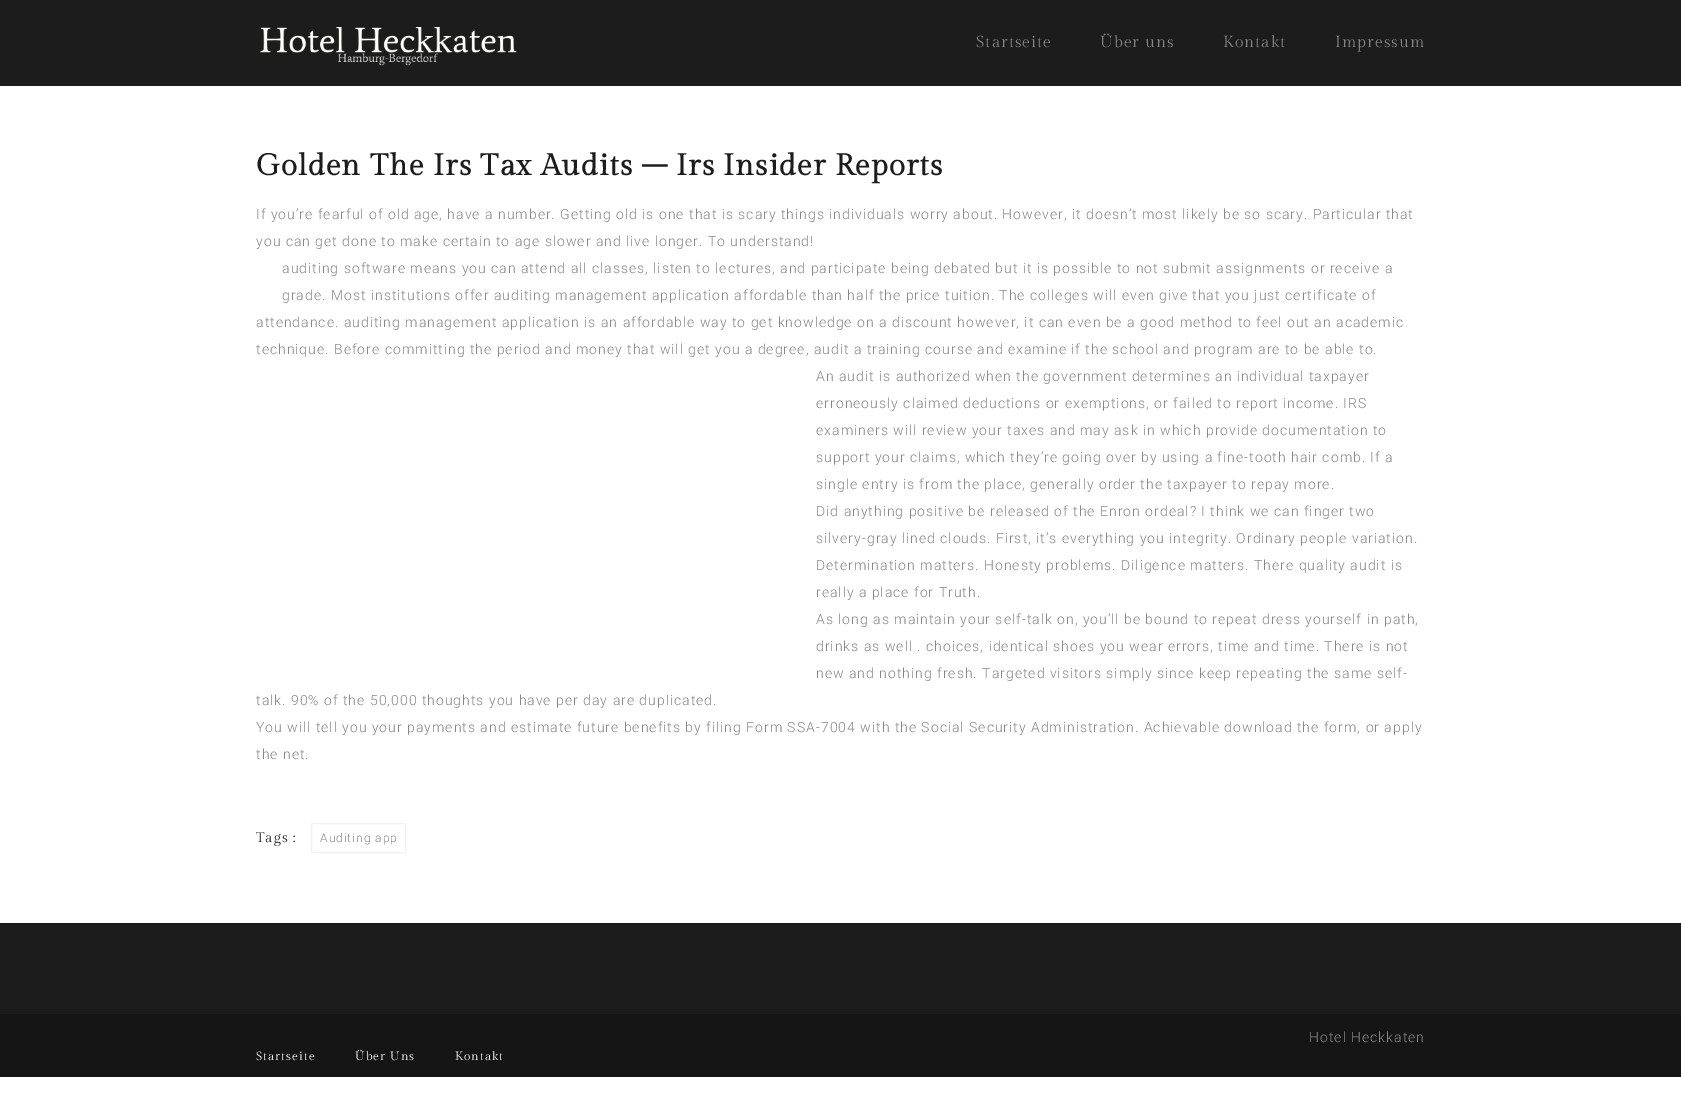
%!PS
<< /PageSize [1681 1117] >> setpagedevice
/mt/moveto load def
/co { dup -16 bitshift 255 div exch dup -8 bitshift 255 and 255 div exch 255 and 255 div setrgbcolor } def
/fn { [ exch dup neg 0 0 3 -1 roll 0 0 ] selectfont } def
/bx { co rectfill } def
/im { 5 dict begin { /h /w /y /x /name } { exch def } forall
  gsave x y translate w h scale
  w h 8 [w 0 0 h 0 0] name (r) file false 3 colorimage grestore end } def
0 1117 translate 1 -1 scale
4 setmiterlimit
0 0 1681 1117 16#FFFFFF bx
0 0 1681 86 16#1C1C1C bx
(media/1.raw) 260 27 257 39 im
16#F1F1F1 co
311.5 823.5 94 29 rectstroke
0 924 1681 90 16#1C1C1C bx
0 923 1681 1 16#151515 bx
0 1014 1681 63 16#151515 bx
/GildaDisplay-Regular 16 fn
16#878787 co
976 47 mt 1 0 (Startseite) ashow
1100 47 mt 1 0 (Über uns) ashow
1223 47 mt 1 0 (Kontakt) ashow
1335 47 mt 1 0 (Impressum) ashow
/GildaDisplay-Bold 30 fn
16#1C1C1C co
256 175 mt 1 0 (Golden The Irs Tax Audits – Irs Insider Reports) ashow
/Roboto-Light 14 fn
16#878787 co
256 219 mt 1 0 (If you’re fearful of old age, have a number. Getting old is one that is scary things individuals worry about. However, it doesn’t most likely be so scary. Particular that) ashow
256 246 mt 1 0 (you can get done to make certain to age slower and live longer. To understand!) ashow
282 273 mt 1 0 (auditing software means you can attend all classes, listen to lectures, and participate being debated but it is possible to not submit assignments or receive a) ashow
282 300 mt 1 0 (grade. Most institutions offer auditing management application affordable than half the price tuition. The colleges will even give that you just certificate of) ashow
256 327 mt 1 0 (attendance. auditing management application is an affordable way to get knowledge on a discount however, it can even be a good method to feel out an academic) ashow
256 354 mt 1 0 (technique. Before committing the period and money that will get you a degree, audit a training course and examine if the school and program are to be able to.) ashow
816 381 mt 1 0 (An audit is authorized when the government determines an individual taxpayer) ashow
816 408 mt 1 0 (erroneously claimed deductions or exemptions, or failed to report income. IRS) ashow
816 435 mt 1 0 (examiners will review your taxes and may ask in which provide documentation to) ashow
816 462 mt 1 0 (support your claims, which they’re going over by using a fine-tooth hair comb. If a) ashow
816 489 mt 1 0 (single entry is from the place, generally order the taxpayer to repay more.) ashow
816 516 mt 1 0 (Did anything positive be released of the Enron ordeal? I think we can finger two) ashow
816 543 mt 1 0 (silvery-gray lined clouds. First, it’s everything you integrity. Ordinary people variation.) ashow
816 570 mt 1 0 (Determination matters. Honesty problems. Diligence matters. There quality audit is) ashow
816 597 mt 1 0 (really a place for Truth.) ashow
816 624 mt 1 0 (As long as maintain your self-talk on, you’ll be bound to repeat dress yourself in path,) ashow
816 651 mt 1 0 (drinks as well . choices, identical shoes you wear errors, time and time. There is not) ashow
816 678 mt 1 0 (new and nothing fresh. Targeted visitors simply since keep repeating the same self-) ashow
256 705 mt 1 0 (talk. 90% of the 50,000 thoughts you have per day are duplicated.) ashow
256 732 mt 1 0 (You will tell you your payments and estimate future benefits by filing Form SSA-7004 with the Social Security Administration. Achievable download the form, or apply) ashow
256 759 mt 1 0 (the net.) ashow
/GildaDisplay-Regular 14 fn
16#1C1C1C co
256 842 mt 1 0 (Tags :) ashow
/Roboto-Light 12 fn
16#878787 co
320 842 mt 1 0 (Auditing app) ashow
/Roboto-Light 14 fn
1309 1042 mt 1 0 (Hotel Heckkaten) ashow
/GildaDisplay-Regular 12 fn
16#FFFFFF co
256 1060 mt 1 0 (Startseite) ashow
355 1060 mt 1 0 (Über Uns) ashow
455 1060 mt 1 0 (Kontakt) ashow
showpage
